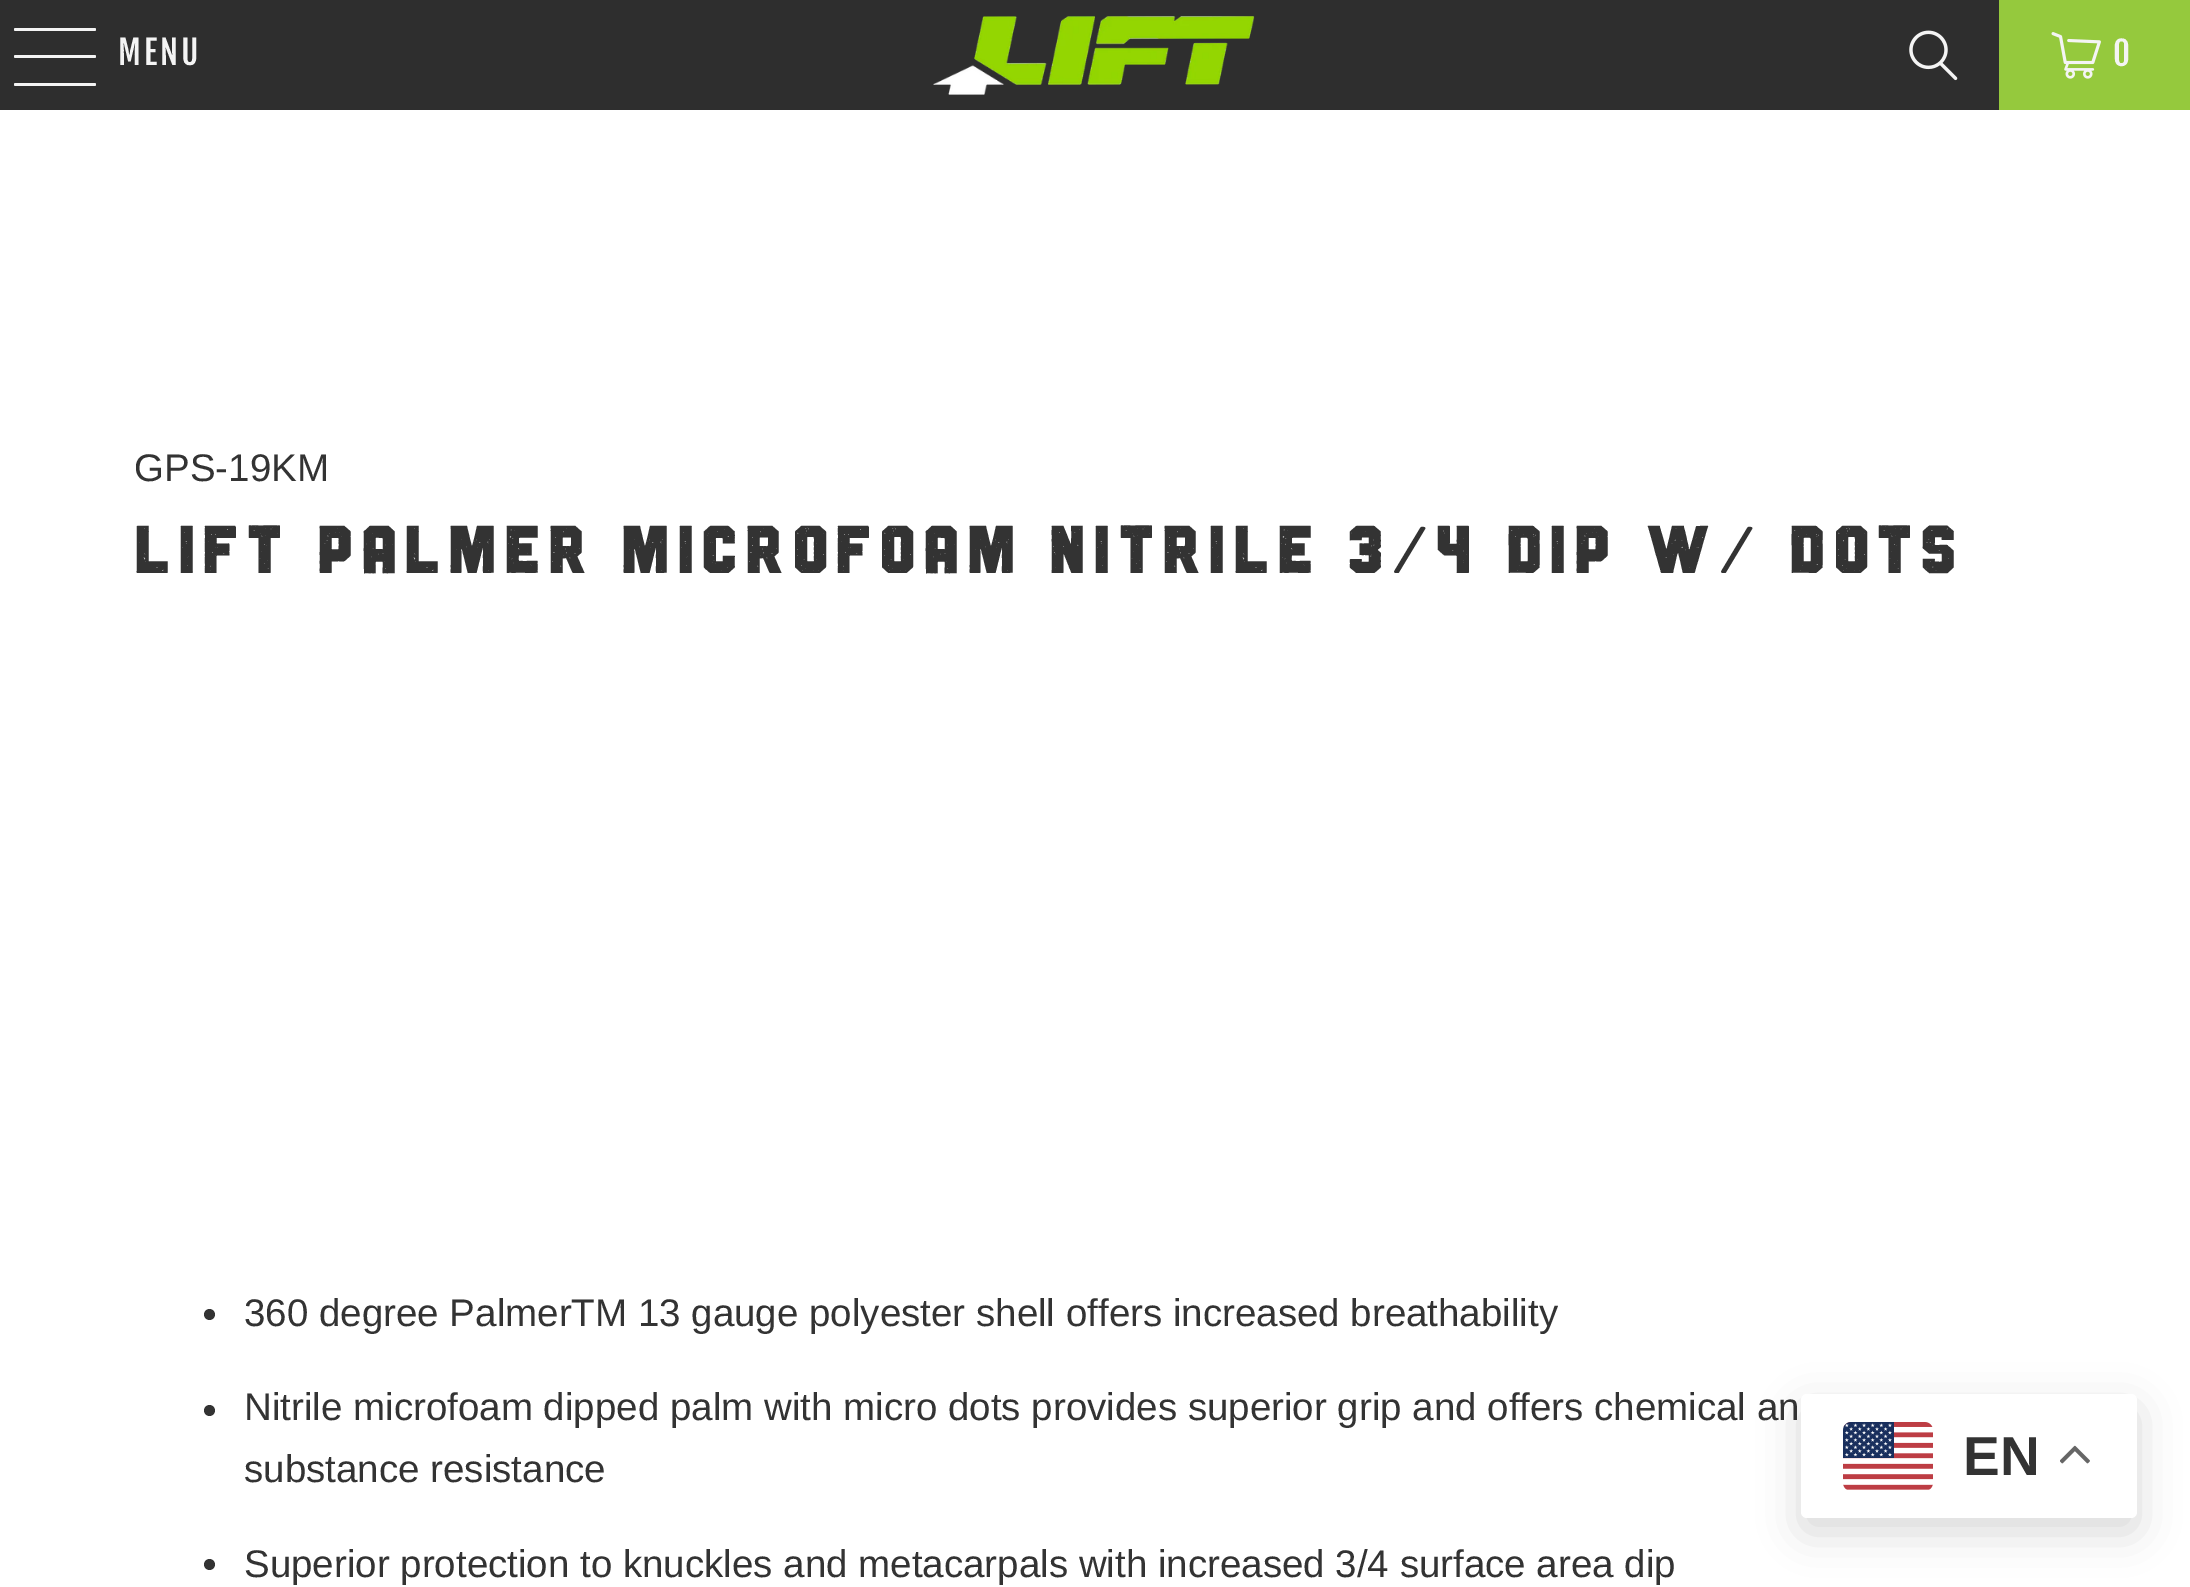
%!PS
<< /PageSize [2190 1587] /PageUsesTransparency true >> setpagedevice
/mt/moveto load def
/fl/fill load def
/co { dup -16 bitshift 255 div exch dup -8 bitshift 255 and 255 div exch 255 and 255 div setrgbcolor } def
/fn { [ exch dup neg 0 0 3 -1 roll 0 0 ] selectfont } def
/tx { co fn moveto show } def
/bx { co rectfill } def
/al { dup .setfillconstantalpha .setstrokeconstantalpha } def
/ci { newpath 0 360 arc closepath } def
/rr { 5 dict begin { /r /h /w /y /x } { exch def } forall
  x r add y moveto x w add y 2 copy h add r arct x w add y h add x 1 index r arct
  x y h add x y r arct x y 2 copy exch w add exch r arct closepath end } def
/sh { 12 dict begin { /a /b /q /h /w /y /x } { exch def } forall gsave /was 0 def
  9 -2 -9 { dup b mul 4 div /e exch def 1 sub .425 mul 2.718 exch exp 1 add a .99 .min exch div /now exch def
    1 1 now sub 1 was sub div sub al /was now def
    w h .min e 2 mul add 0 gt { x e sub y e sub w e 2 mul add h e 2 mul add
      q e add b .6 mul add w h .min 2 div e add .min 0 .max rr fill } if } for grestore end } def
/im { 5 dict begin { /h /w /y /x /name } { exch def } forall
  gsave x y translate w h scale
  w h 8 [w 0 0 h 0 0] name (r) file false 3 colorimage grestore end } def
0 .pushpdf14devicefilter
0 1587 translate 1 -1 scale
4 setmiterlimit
0 0 2190 1587 16#FFFFFF bx
0 0 1999 110 16#2E2E2E bx
16#F4F4F4 co
14 28 82 3 1.5 rr fl
14 55 82 3 1.5 rr fl
14 83 82 3 1.5 rr fl
(media/1.raw) 933 16 322 79 im
(media/2.raw) 1909 30 49 51 im
1999 0 191 110 16#95C93D bx
(media/3.raw) 2051 32 50 47 im
16#333333 co
209.5 1314.5 5.5 ci fl
209.5 1410.5 5.5 ci fl
209.5 1564.5 5.5 ci fl
16#000000 co
1801 1408 336 124 6 20.5 .15 sh
16#FFFFFF co
1801 1394 336 124 6 rr fl
(media/4.raw) 1843 1422 90 68 im
(media/5.raw) 2060 1445 30 19 im
/FjallaOne-Regular 33 fn
16#F4F4F4 co
118 65 mt 3 0 (MENU) ashow
2113 66 mt 3 0 (0) ashow
(GPS-19KM) 134 481 /LiberationSans-Regular 38.5 16#333333 tx
/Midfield-Regular 66 fn
134 573 mt 7.25 0 (LIFT PALMER MICROFOAM NITRILE 3/4 DIP W/ DOTS) ashow
(360 degree PalmerTM 13 gauge polyester shell offers increased breathability) 244 1326 /LiberationSans-Regular 38.5 16#333333 tx
(Nitrile microfoam dipped palm with micro dots provides superior grip and offers chemical an) 244 1420 /LiberationSans-Regular 38.5 16#333333 tx
(substance resistance) 244 1482 /LiberationSans-Regular 38.5 16#333333 tx
(Superior protection to knuckles and metacarpals with increased 3/4 surface area dip) 244 1577 /LiberationSans-Regular 38.5 16#333333 tx
(EN) 1963 1475 /LiberationSans-Bold 55 16#333333 tx
.poppdf14devicefilter showpage
